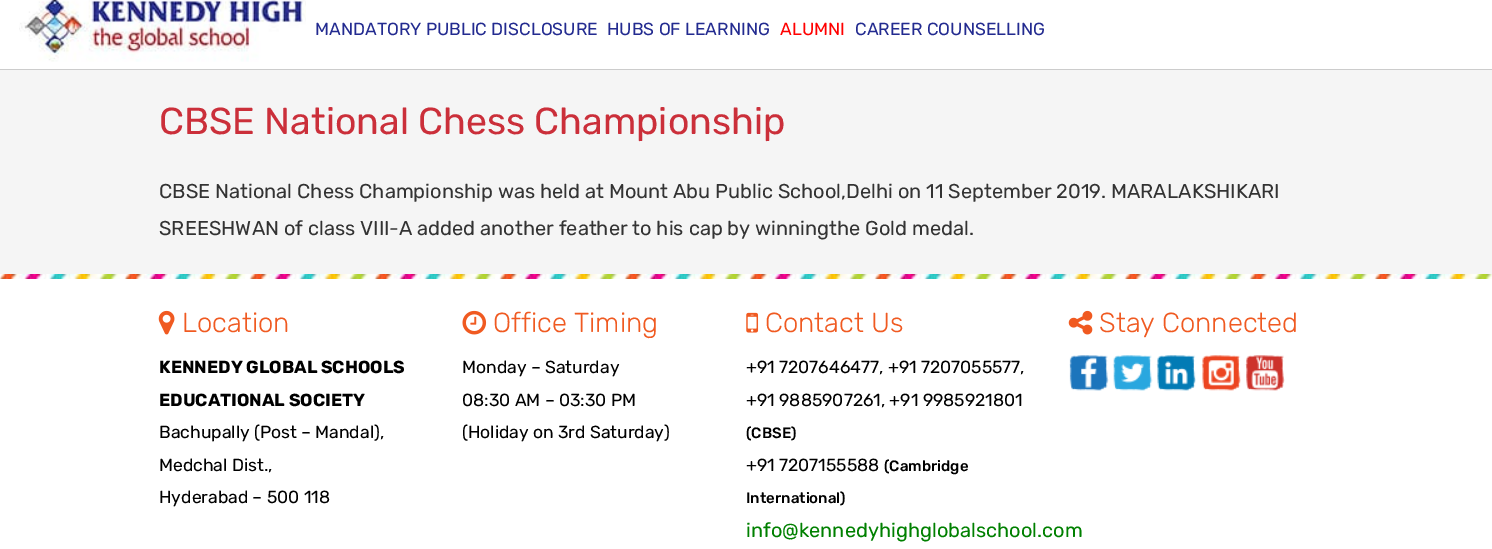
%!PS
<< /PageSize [1492 549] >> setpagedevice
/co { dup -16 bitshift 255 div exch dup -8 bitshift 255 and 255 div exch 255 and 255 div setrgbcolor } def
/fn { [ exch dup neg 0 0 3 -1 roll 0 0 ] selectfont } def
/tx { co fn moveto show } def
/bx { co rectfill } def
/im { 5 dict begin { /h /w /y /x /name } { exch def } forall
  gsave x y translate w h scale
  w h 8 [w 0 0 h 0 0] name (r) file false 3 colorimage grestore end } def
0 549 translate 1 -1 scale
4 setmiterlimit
0 0 1492 549 16#FFFFFF bx
0 69 1492 1 16#CCCCCC bx
(media/1.raw) 19 0 287 62 im
0 70 1492 204 16#F5F5F5 bx
(media/2.raw) 0 274 1492 5 im
(media/3.raw) 158 310 17 25 im
(media/4.raw) 462 310 25 25 im
(media/5.raw) 746 312 13 21 im
(media/6.raw) 1068 310 25 25 im
(media/7.raw) 1069 355 40 36 im
(media/8.raw) 1112 355 41 36 im
(media/9.raw) 1156 355 40 36 im
(media/10.raw) 1201 355 40 36 im
(media/11.raw) 1245 355 40 36 im
(MANDATORY PUBLIC DISCLOSURE) 315 35 /Rubik-Regular 17.5 16#232B90 tx
(HUBS OF LEARNING) 607 35 /Rubik-Regular 17.5 16#232B90 tx
(ALUMNI) 780 35 /Rubik-Regular 17.5 16#FF0000 tx
(CAREER COUNSELLING) 855 35 /Rubik-Regular 17.5 16#232B90 tx
(CBSE National Chess Championship) 159 134 /Rubik-Regular 37.5 16#CB2F3A tx
(CBSE National Chess Championship was held at Mount Abu Public School,Delhi on 11 September 2019. MARALAKSHIKARI) 159 198 /Rubik-Regular 20 16#333333 tx
(SREESHWAN of class VIII-A added another feather to his cap by winningthe Gold medal.) 159 235 /Rubik-Regular 20 16#333333 tx
(Location) 182 332 /Rubik-Light 27.5 16#F05A21 tx
(KENNEDY GLOBAL SCHOOLS) 159 373 /Rubik-Bold 17.5 16#000000 tx
(EDUCATIONAL SOCIETY) 159 406 /Rubik-Bold 17.5 16#000000 tx
(Bachupally \(Post – Mandal\),) 159 438 /Rubik-Regular 17.5 16#000000 tx
(Medchal Dist.,) 159 471 /Rubik-Regular 17.5 16#000000 tx
(Hyderabad – 500 118) 159 503 /Rubik-Regular 17.5 16#000000 tx
(Office Timing) 493 332 /Rubik-Light 27.5 16#F05A21 tx
(Monday – Saturday) 462 373 /Rubik-Regular 17.5 16#000000 tx
(08:30 AM – 03:30 PM) 462 406 /Rubik-Regular 17.5 16#000000 tx
(\(Holiday on 3rd Saturday\)) 462 438 /Rubik-Regular 17.5 16#000000 tx
(Contact Us) 765 332 /Rubik-Light 27.5 16#F05A21 tx
(+91 7207646477, +91 7207055577,) 746 373 /Rubik-Regular 17.5 16#000000 tx
(+91 9885907261, +91 9985921801) 746 406 /Rubik-Regular 17.5 16#000000 tx
(\(CBSE\)) 746 438 /Rubik-Medium 15 16#000000 tx
(+91 7207155588) 746 471 /Rubik-Regular 17.5 16#000000 tx
(\(Cambridge) 884 471 /Rubik-Medium 15 16#000000 tx
(International\)) 746 503 /Rubik-Medium 15 16#000000 tx
(info@kennedyhighglobalschool.com) 746 537 /Rubik-Regular 20 16#008000 tx
(Stay Connected) 1099 332 /Rubik-Light 27.5 16#F05A21 tx
showpage
